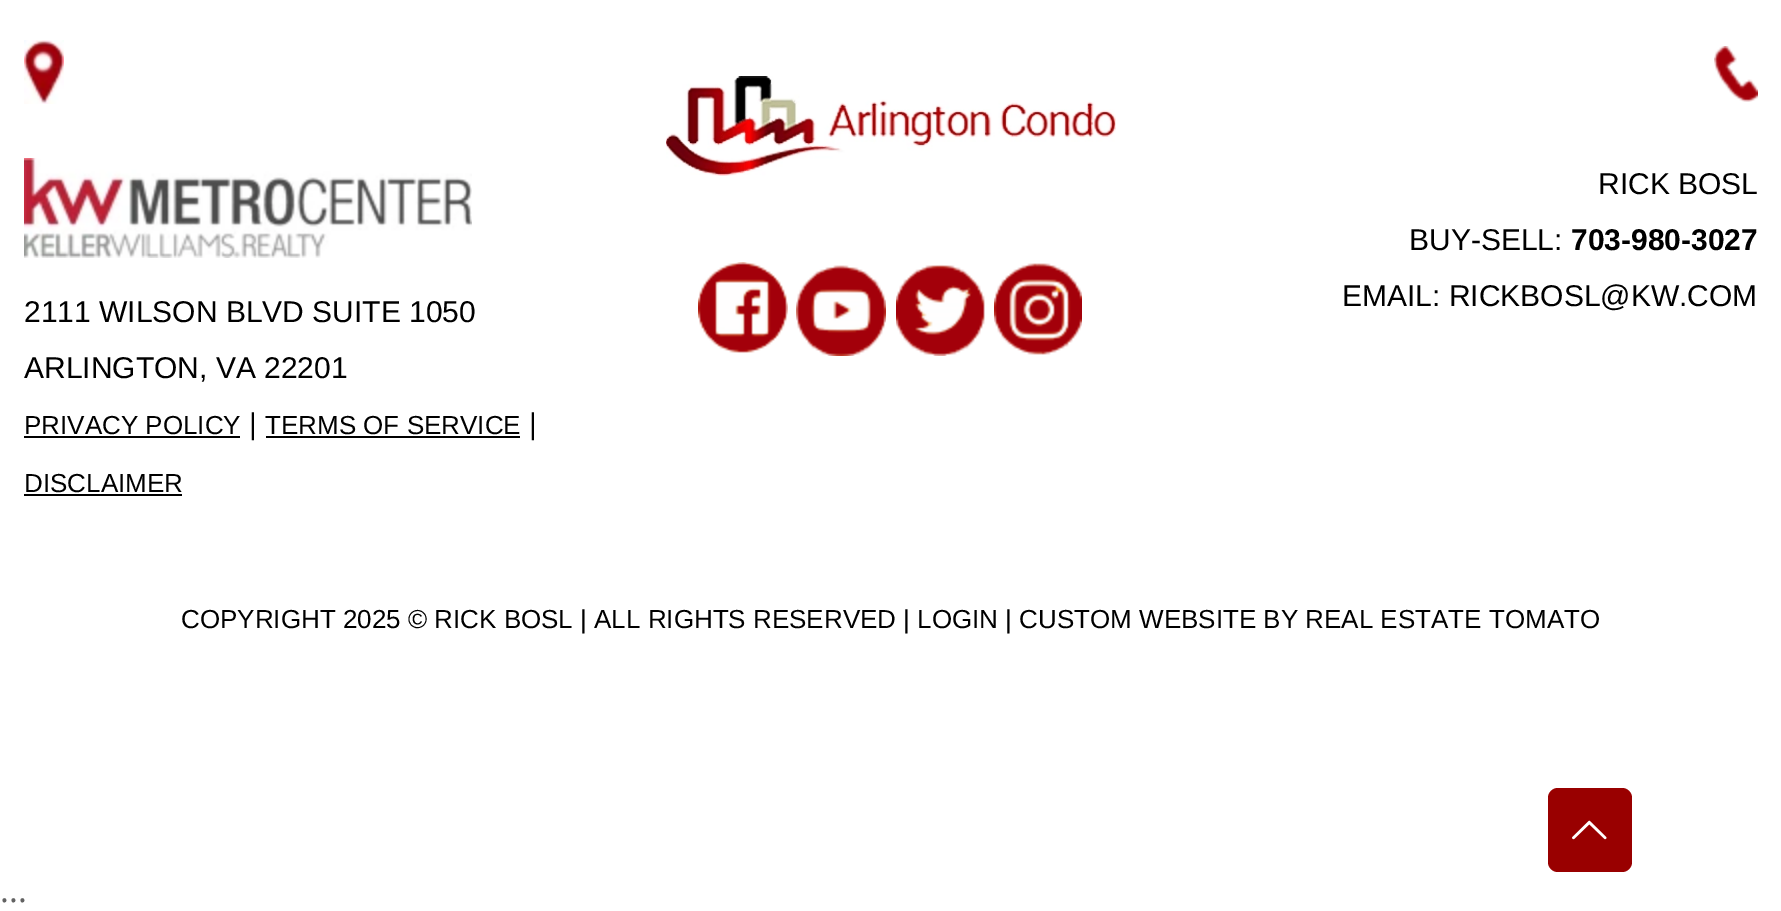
%!PS
<< /PageSize [1781 911] >> setpagedevice
/fl/fill load def
/co { dup -16 bitshift 255 div exch dup -8 bitshift 255 and 255 div exch 255 and 255 div setrgbcolor } def
/fn { [ exch dup neg 0 0 3 -1 roll 0 0 ] selectfont } def
/tx { co fn moveto show } def
/bx { co rectfill } def
/rr { 5 dict begin { /r /h /w /y /x } { exch def } forall
  x r add y moveto x w add y 2 copy h add r arct x w add y h add x 1 index r arct
  x y h add x y r arct x y 2 copy exch w add exch r arct closepath end } def
/im { 5 dict begin { /h /w /y /x /name } { exch def } forall
  gsave x y translate w h scale
  w h 8 [w 0 0 h 0 0] name (r) file false 3 colorimage grestore end } def
0 911 translate 1 -1 scale
4 setmiterlimit
0 0 1781 911 16#FFFFFF bx
(media/1.raw) 666 76 450 100 im
(media/2.raw) 698 262 90 92 im
(media/3.raw) 796 265 90 91 im
(media/4.raw) 896 264 89 92 im
(media/5.raw) 994 263 88 92 im
(media/6.raw) 1714 46 44 56 im
(media/7.raw) 24 40 40 64 im
(media/8.raw) 24 158 448 100 im
24 436 216 2 16#000000 bx
266 436 254 2 16#000000 bx
24 494 158 2 16#000000 bx
16#990000 co
1548 788 84 84 10 rr fl
(media/9.raw) 1572 820 35 20 im
(RICK BOSL) 1598 194 /LiberationSans-Regular 30 16#000000 tx
(BUY-SELL:) 1409 250 /LiberationSans-Regular 30 16#000000 tx
(703-980-3027) 1571 250 /LiberationSans-Bold 30 16#000000 tx
(EMAIL: RICKBOSL@KW.COM) 1342 306 /LiberationSans-Regular 30 16#000000 tx
(2111 WILSON BLVD SUITE 1050) 24 322 /LiberationSans-Regular 30 16#000000 tx
(ARLINGTON, VA 22201) 24 378 /LiberationSans-Regular 30 16#000000 tx
(PRIVACY POLICY) 24 434 /LiberationSans-Regular 26 16#000000 tx
(|) 249 434 /LiberationSans-Regular 30 16#000000 tx
(TERMS OF SERVICE) 265 434 /LiberationSans-Regular 26 16#000000 tx
(|) 529 434 /LiberationSans-Regular 30 16#000000 tx
(DISCLAIMER) 24 492 /LiberationSans-Regular 26 16#000000 tx
(COPYRIGHT 2025 © RICK BOSL | ALL RIGHTS RESERVED | LOGIN | CUSTOM WEBSITE BY REAL ESTATE TOMATO) 181 628 /LiberationSans-Regular 26 16#000000 tx
(...) 0 902 /OpenSans-Regular 34 16#626262 tx
showpage
